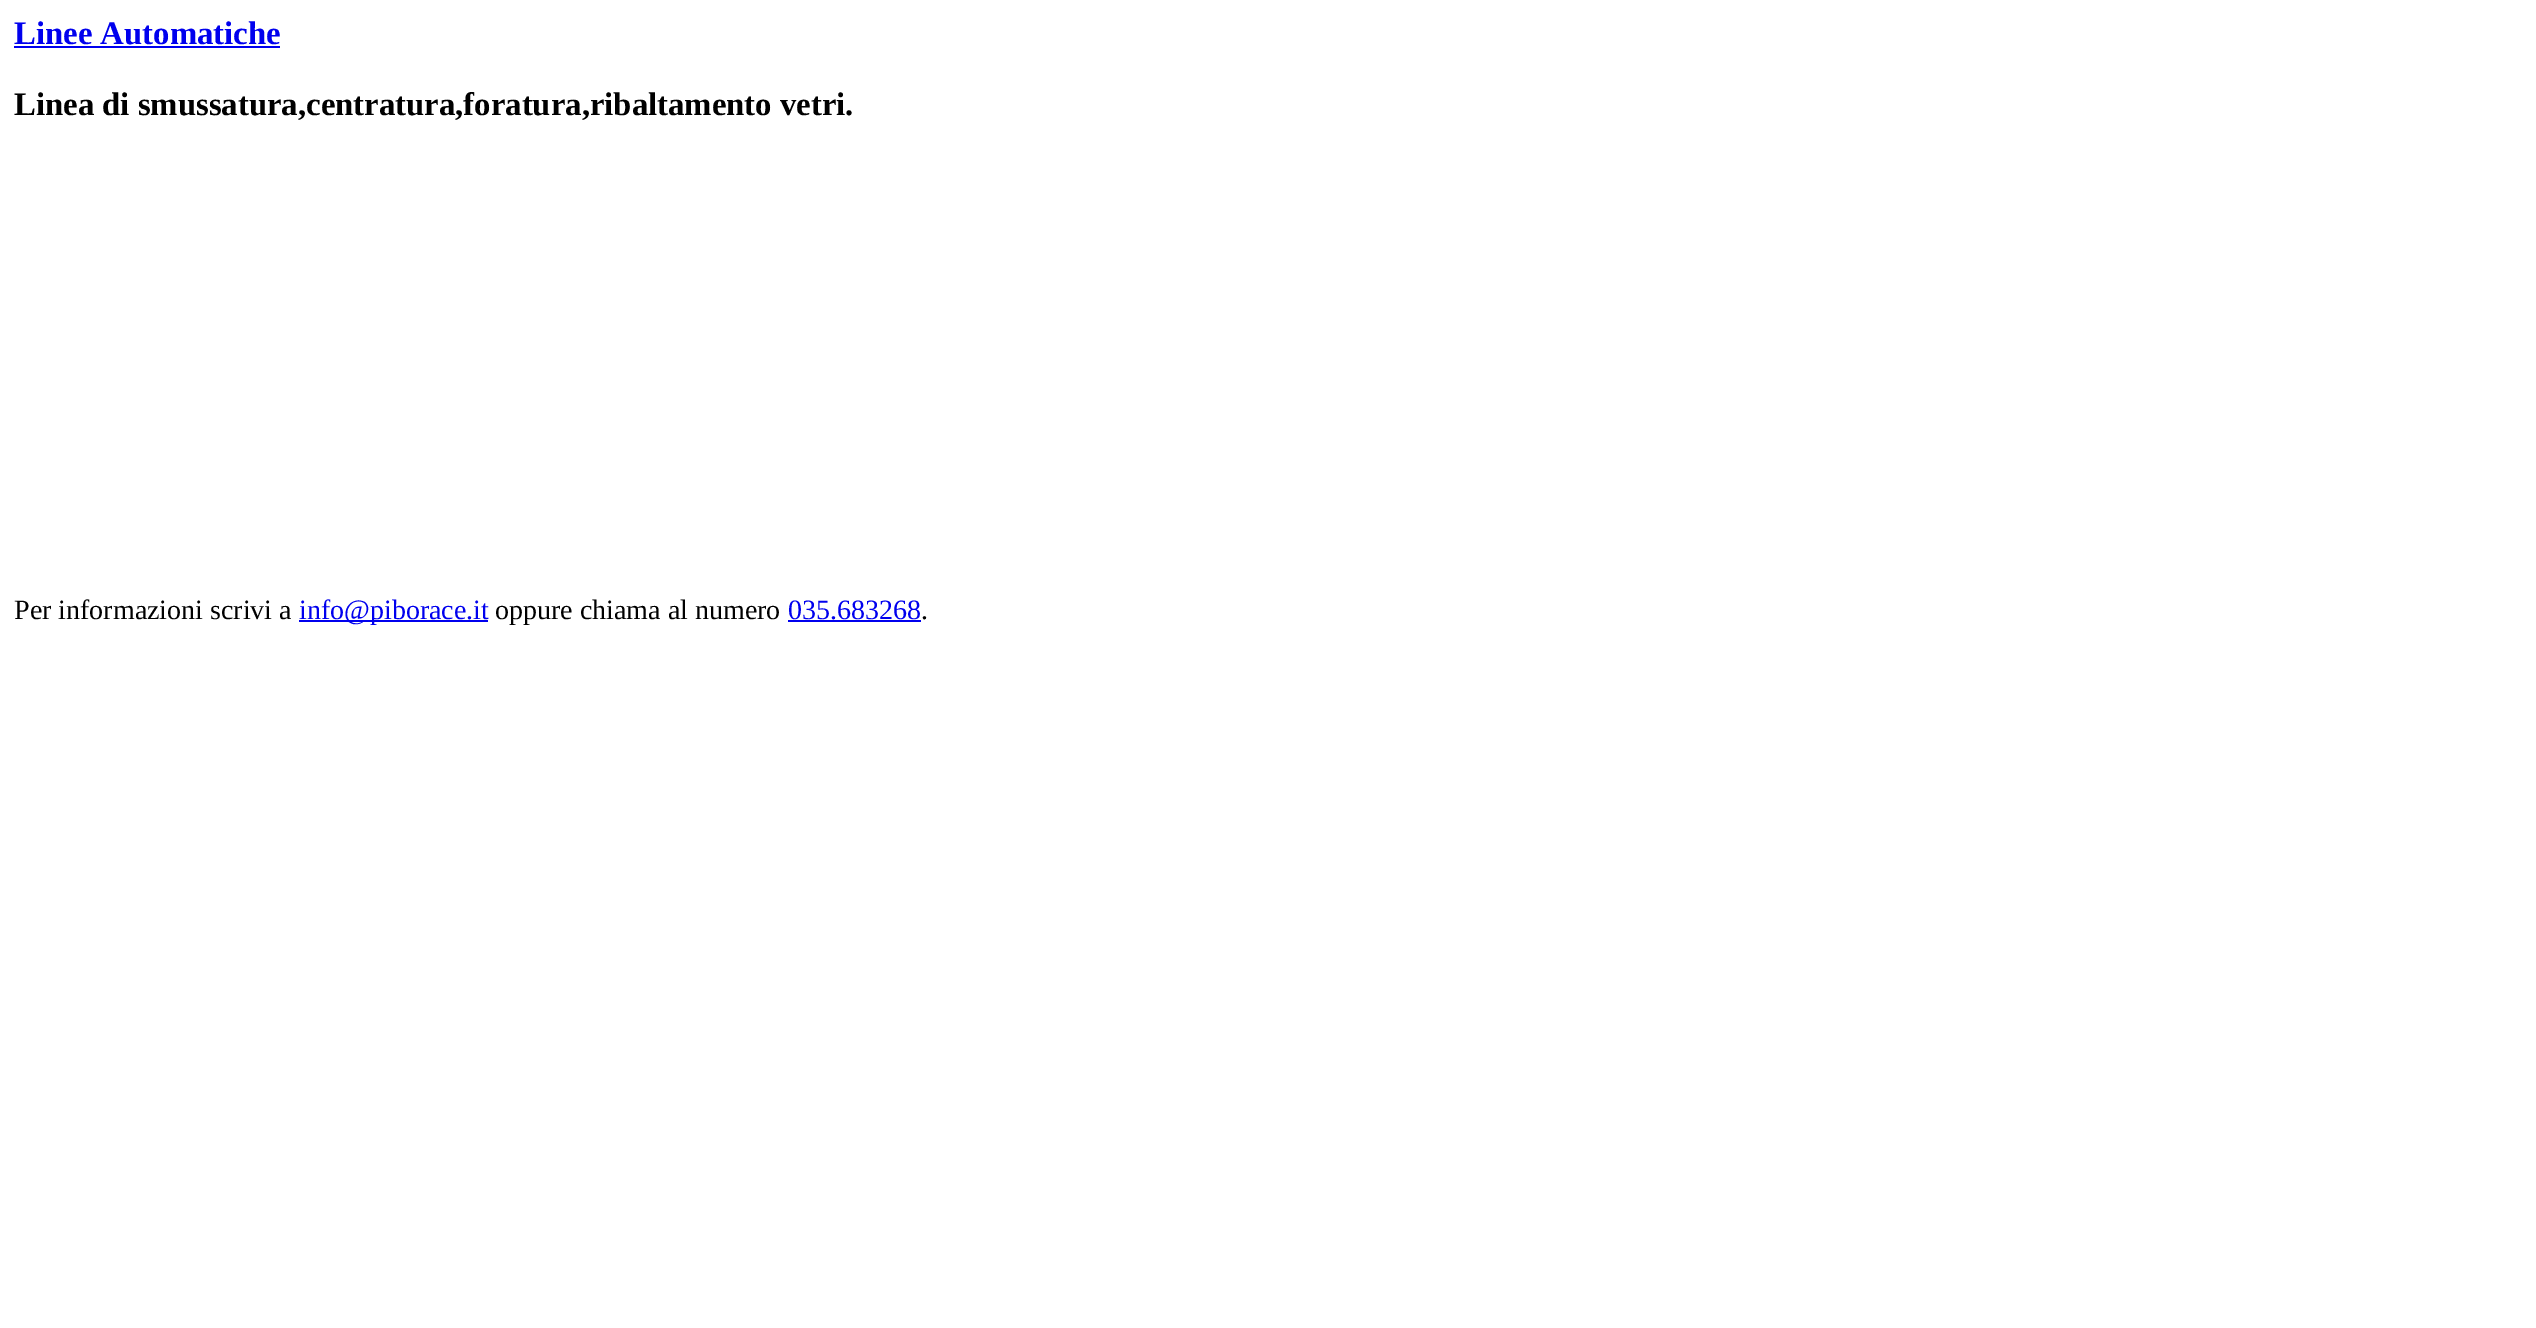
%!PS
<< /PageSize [2536 1328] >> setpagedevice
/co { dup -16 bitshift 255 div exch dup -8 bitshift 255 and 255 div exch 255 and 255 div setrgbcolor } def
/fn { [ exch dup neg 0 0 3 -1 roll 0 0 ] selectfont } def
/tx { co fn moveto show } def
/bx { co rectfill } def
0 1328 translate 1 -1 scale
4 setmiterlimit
0 0 2536 1328 16#FFFFFF bx
14 46 266 2 16#0000EE bx
299 620 189 2 16#0000EE bx
788 620 133 2 16#0000EE bx
(Linee Automatiche) 14 44 /LiberationSerif-Bold 32.75 16#0000EE tx
(Linea di smussatura,centratura,foratura,ribaltamento vetri.) 14 115 /LiberationSerif-Bold 32.75 16#000000 tx
(Per informazioni scrivi a) 14 619 /LiberationSerif-Regular 28 16#000000 tx
(info@piborace.it) 299 619 /LiberationSerif-Regular 28 16#0000EE tx
(oppure chiama al numero) 495 619 /LiberationSerif-Regular 28 16#000000 tx
(035.683268) 788 619 /LiberationSerif-Regular 28 16#0000EE tx
(.) 921 619 /LiberationSerif-Regular 28 16#000000 tx
showpage
